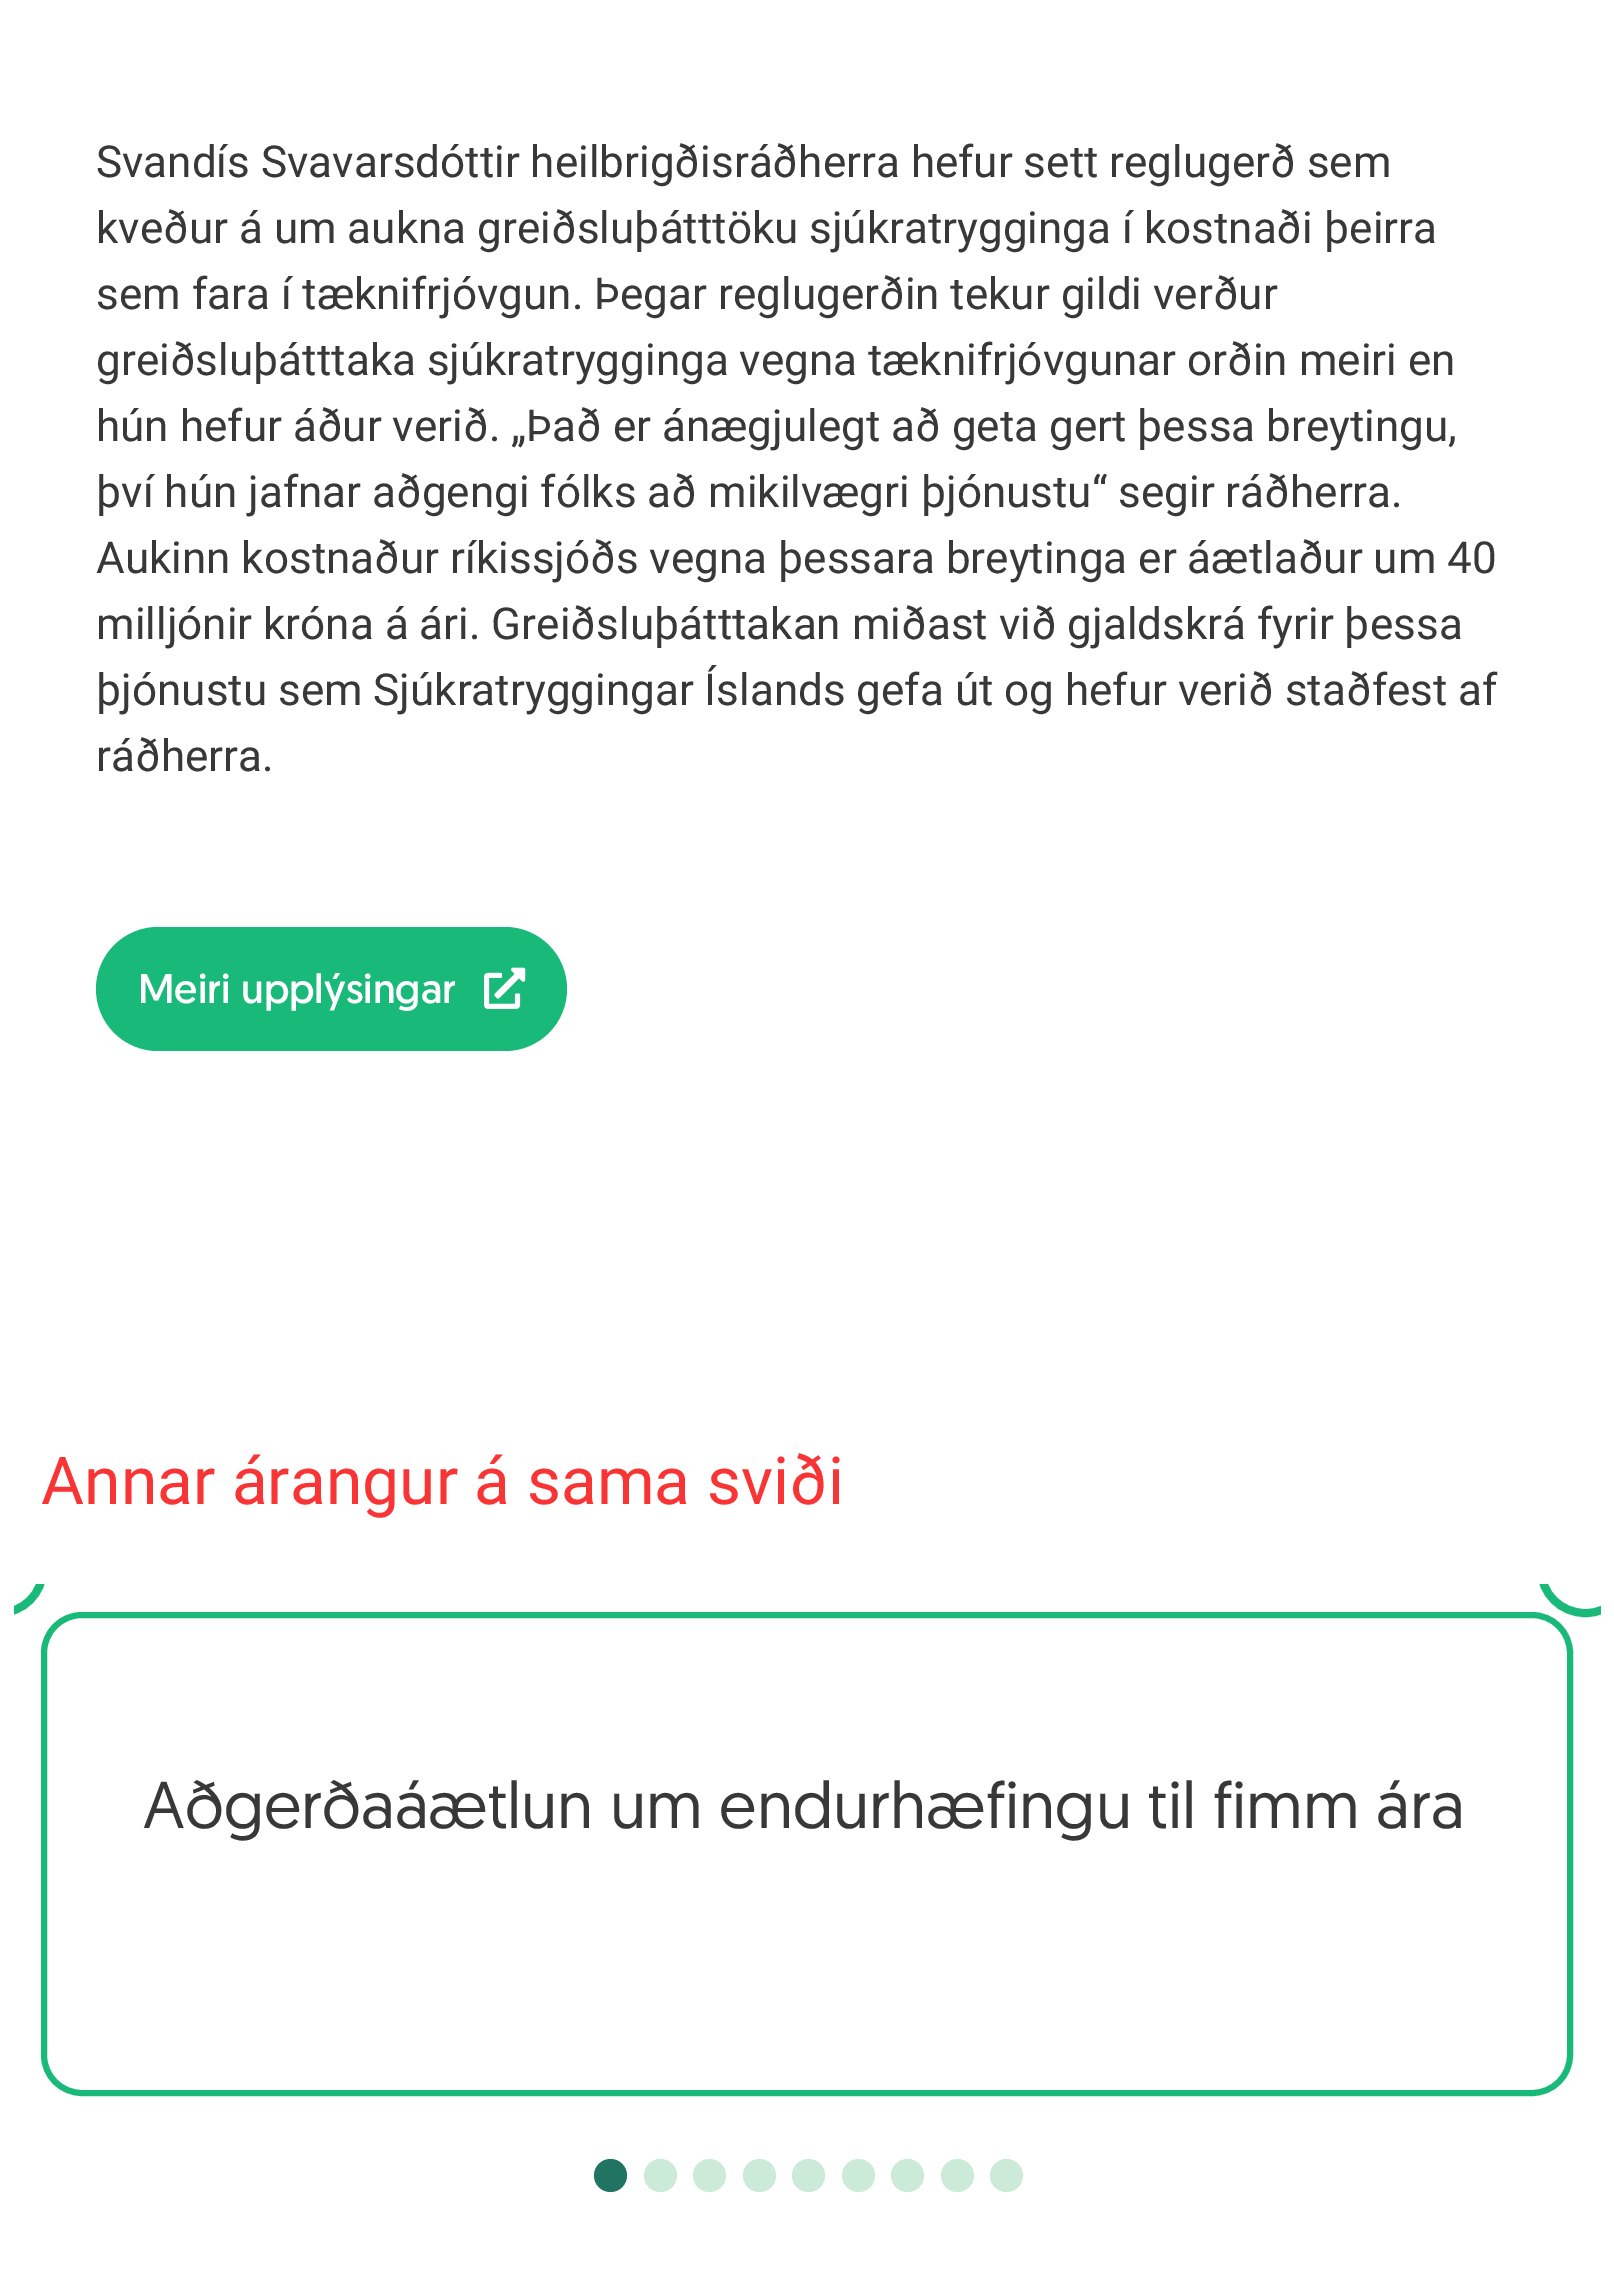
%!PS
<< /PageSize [1614 2281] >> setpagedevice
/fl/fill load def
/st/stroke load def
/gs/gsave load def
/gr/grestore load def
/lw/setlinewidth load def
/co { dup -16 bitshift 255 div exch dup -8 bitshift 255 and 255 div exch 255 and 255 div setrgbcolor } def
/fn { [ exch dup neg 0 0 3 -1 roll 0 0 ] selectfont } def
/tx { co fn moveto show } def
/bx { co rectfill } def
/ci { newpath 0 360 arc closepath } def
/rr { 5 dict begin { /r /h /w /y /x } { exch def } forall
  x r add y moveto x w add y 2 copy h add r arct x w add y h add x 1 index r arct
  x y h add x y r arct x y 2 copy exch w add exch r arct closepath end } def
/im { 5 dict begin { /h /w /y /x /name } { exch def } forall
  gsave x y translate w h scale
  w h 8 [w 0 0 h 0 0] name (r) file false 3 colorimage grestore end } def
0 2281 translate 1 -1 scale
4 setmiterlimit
0 0 1614 2281 16#FFFFFF bx
16#19BA79 co
96 927 471 124 62 rr fl
(media/1.raw) 484 967 42 42 im
6 lw
44 1615 1526 478 38 rr st
gs
14 1584 1587 539 rectclip
8 lw
1541 1525 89 88 44 rr st
-1 1569 44 ci st
gr
16#217462 co
610.5 2175.5 16.5 ci fl
16#CBEAD8 co
660.5 2175.5 16.5 ci fl
709.5 2175.5 16.5 ci fl
759.5 2175.5 16.5 ci fl
808.5 2175.5 16.5 ci fl
858.5 2175.5 16.5 ci fl
907.5 2175.5 16.5 ci fl
957.5 2175.5 16.5 ci fl
1006.5 2175.5 16.5 ci fl
(Svandís Svavarsdóttir heilbrigðisráðherra hefur sett reglugerð sem) 96 177 /Roboto-Regular 44 16#383838 tx
(kveður á um aukna greiðsluþátttöku sjúkratrygginga í kostnaði þeirra) 96 243 /Roboto-Regular 44 16#383838 tx
(sem fara í tæknifrjóvgun. Þegar reglugerðin tekur gildi verður) 96 309 /Roboto-Regular 44 16#383838 tx
(greiðsluþátttaka sjúkratrygginga vegna tæknifrjóvgunar orðin meiri en) 96 375 /Roboto-Regular 44 16#383838 tx
(hún hefur áður verið. „Það er ánægjulegt að geta gert þessa breytingu,) 96 441 /Roboto-Regular 44 16#383838 tx
(því hún jafnar aðgengi fólks að mikilvægri þjónustu“ segir ráðherra.) 96 507 /Roboto-Regular 44 16#383838 tx
(Aukinn kostnaður ríkissjóðs vegna þessara breytinga er áætlaður um 40) 96 573 /Roboto-Regular 44 16#383838 tx
(milljónir króna á ári. Greiðsluþátttakan miðast við gjaldskrá fyrir þessa) 96 639 /Roboto-Regular 44 16#383838 tx
(þjónustu sem Sjúkratryggingar Íslands gefa út og hefur verið staðfest af) 96 705 /Roboto-Regular 44 16#383838 tx
(ráðherra.) 96 771 /Roboto-Regular 44 16#383838 tx
(Meiri upplýsingar) 138 1003 /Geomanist-Regular 41.25 16#FFFFFF tx
(Annar árangur á sama sviði) 41 1504 /Roboto-Regular 66 16#F93434 tx
(Aðgerðaáætlun um endurhæfingu til fimm ára) 143 1828 /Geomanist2-Regular 66 16#383838 tx
showpage
